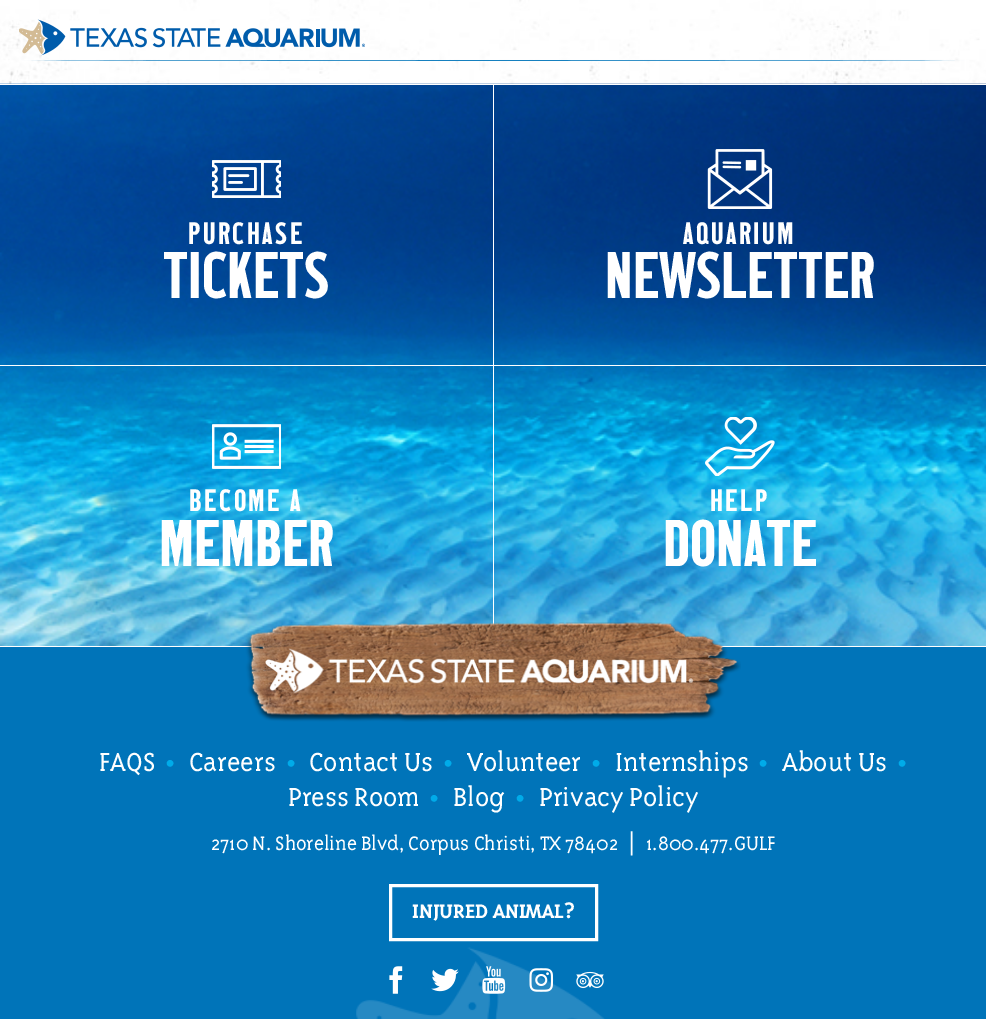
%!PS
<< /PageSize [986 1019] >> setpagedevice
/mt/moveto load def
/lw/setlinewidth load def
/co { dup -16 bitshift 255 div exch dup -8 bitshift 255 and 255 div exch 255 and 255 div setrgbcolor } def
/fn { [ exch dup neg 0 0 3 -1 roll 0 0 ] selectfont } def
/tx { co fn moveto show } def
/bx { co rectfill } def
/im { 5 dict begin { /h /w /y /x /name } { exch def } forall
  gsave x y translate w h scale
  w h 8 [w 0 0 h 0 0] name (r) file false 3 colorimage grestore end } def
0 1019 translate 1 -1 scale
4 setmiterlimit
0 0 986 1019 16#FFFFFF bx
(media/1.raw) 0 0 986 84 im
(media/2.raw) 19 19 346 37 im
0 647 986 372 16#0074B9 bx
(media/3.raw) 0 83 986 563 im
0 84 986 1 16#FFFFFF bx
493 84 1 281 16#FFFFFF bx
(media/4.raw) 212 160 69 38 im
(media/5.raw) 707 149 66 60 im
0 365 986 1 16#FFFFFF bx
493 365 1 260 16#FFFFFF bx
(media/6.raw) 212 424 69 45 im
(media/7.raw) 705 417 70 59 im
(media/8.raw) 356 947 249 72 im
(media/9.raw) 245 622 496 100 im
3 lw
390.5 885.5 206 54 rectstroke
(media/10.raw) 389 966 14 28 im
(media/11.raw) 431 968 28 24 im
(media/12.raw) 482 966 24 28 im
(media/13.raw) 529 968 25 24 im
(media/14.raw) 576 971 28 18 im
/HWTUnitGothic-Regular 32.5 fn
188 244 mt 2.5 0 (PURCHASE) ashow
(TICKETS) 163 298 /HWTUnitGothic-Regular 69 16#FFFFFF tx
/HWTUnitGothic-Regular 32.5 fn
683 244 mt 2.5 0 (AQUARIUM) ashow
(NEWSLETTER) 605 298 /HWTUnitGothic-Regular 69 16#FFFFFF tx
/HWTUnitGothic-Regular 32.5 fn
189 511 mt 2.5 0 (BECOME A) ashow
(MEMBER) 159 566 /HWTUnitGothic-Regular 69 16#FFFFFF tx
/HWTUnitGothic-Regular 32.5 fn
710 511 mt 2.5 0 (HELP) ashow
(DONATE) 663 566 /HWTUnitGothic-Regular 69 16#FFFFFF tx
(FAQS) 99 771 /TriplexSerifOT-Light 30 16#FFFFFF tx
(•) 165 774 /TriplexSerifOT-Light 34 16#00ABE9 tx
(Careers) 189 771 /TriplexSerifOT-Light 30 16#FFFFFF tx
(•) 286 774 /TriplexSerifOT-Light 34 16#00ABE9 tx
(Contact Us) 309 771 /TriplexSerifOT-Light 30 16#FFFFFF tx
(•) 443 774 /TriplexSerifOT-Light 34 16#00ABE9 tx
(Volunteer) 467 771 /TriplexSerifOT-Light 30 16#FFFFFF tx
(•) 591 774 /TriplexSerifOT-Light 34 16#00ABE9 tx
(Internships) 615 771 /TriplexSerifOT-Light 30 16#FFFFFF tx
(•) 758 774 /TriplexSerifOT-Light 34 16#00ABE9 tx
(About Us) 782 771 /TriplexSerifOT-Light 30 16#FFFFFF tx
(•) 897 774 /TriplexSerifOT-Light 34 16#00ABE9 tx
(Press Room) 288 806 /TriplexSerifOT-Light 30 16#FFFFFF tx
(•) 429 809 /TriplexSerifOT-Light 34 16#00ABE9 tx
(Blog) 453 806 /TriplexSerifOT-Light 30 16#FFFFFF tx
(•) 515 809 /TriplexSerifOT-Light 34 16#00ABE9 tx
(Privacy Policy) 539 806 /TriplexSerifOT-Light 30 16#FFFFFF tx
(2710 N. Shoreline Blvd, Corpus Christi, TX 78402) 211 850 /TriplexSerifOT-Light 22.5 16#FFFFFF tx
(|) 628 850 /TriplexSerifOT-Light 25 16#FFFFFF tx
(1.800.477.GULF) 646 850 /TriplexSerifOT-Light 22.5 16#FFFFFF tx
(INJURED ANIMAL?) 412 918 /TriplexSerifOT-Bold 22.5 16#FFFFFF tx
showpage
